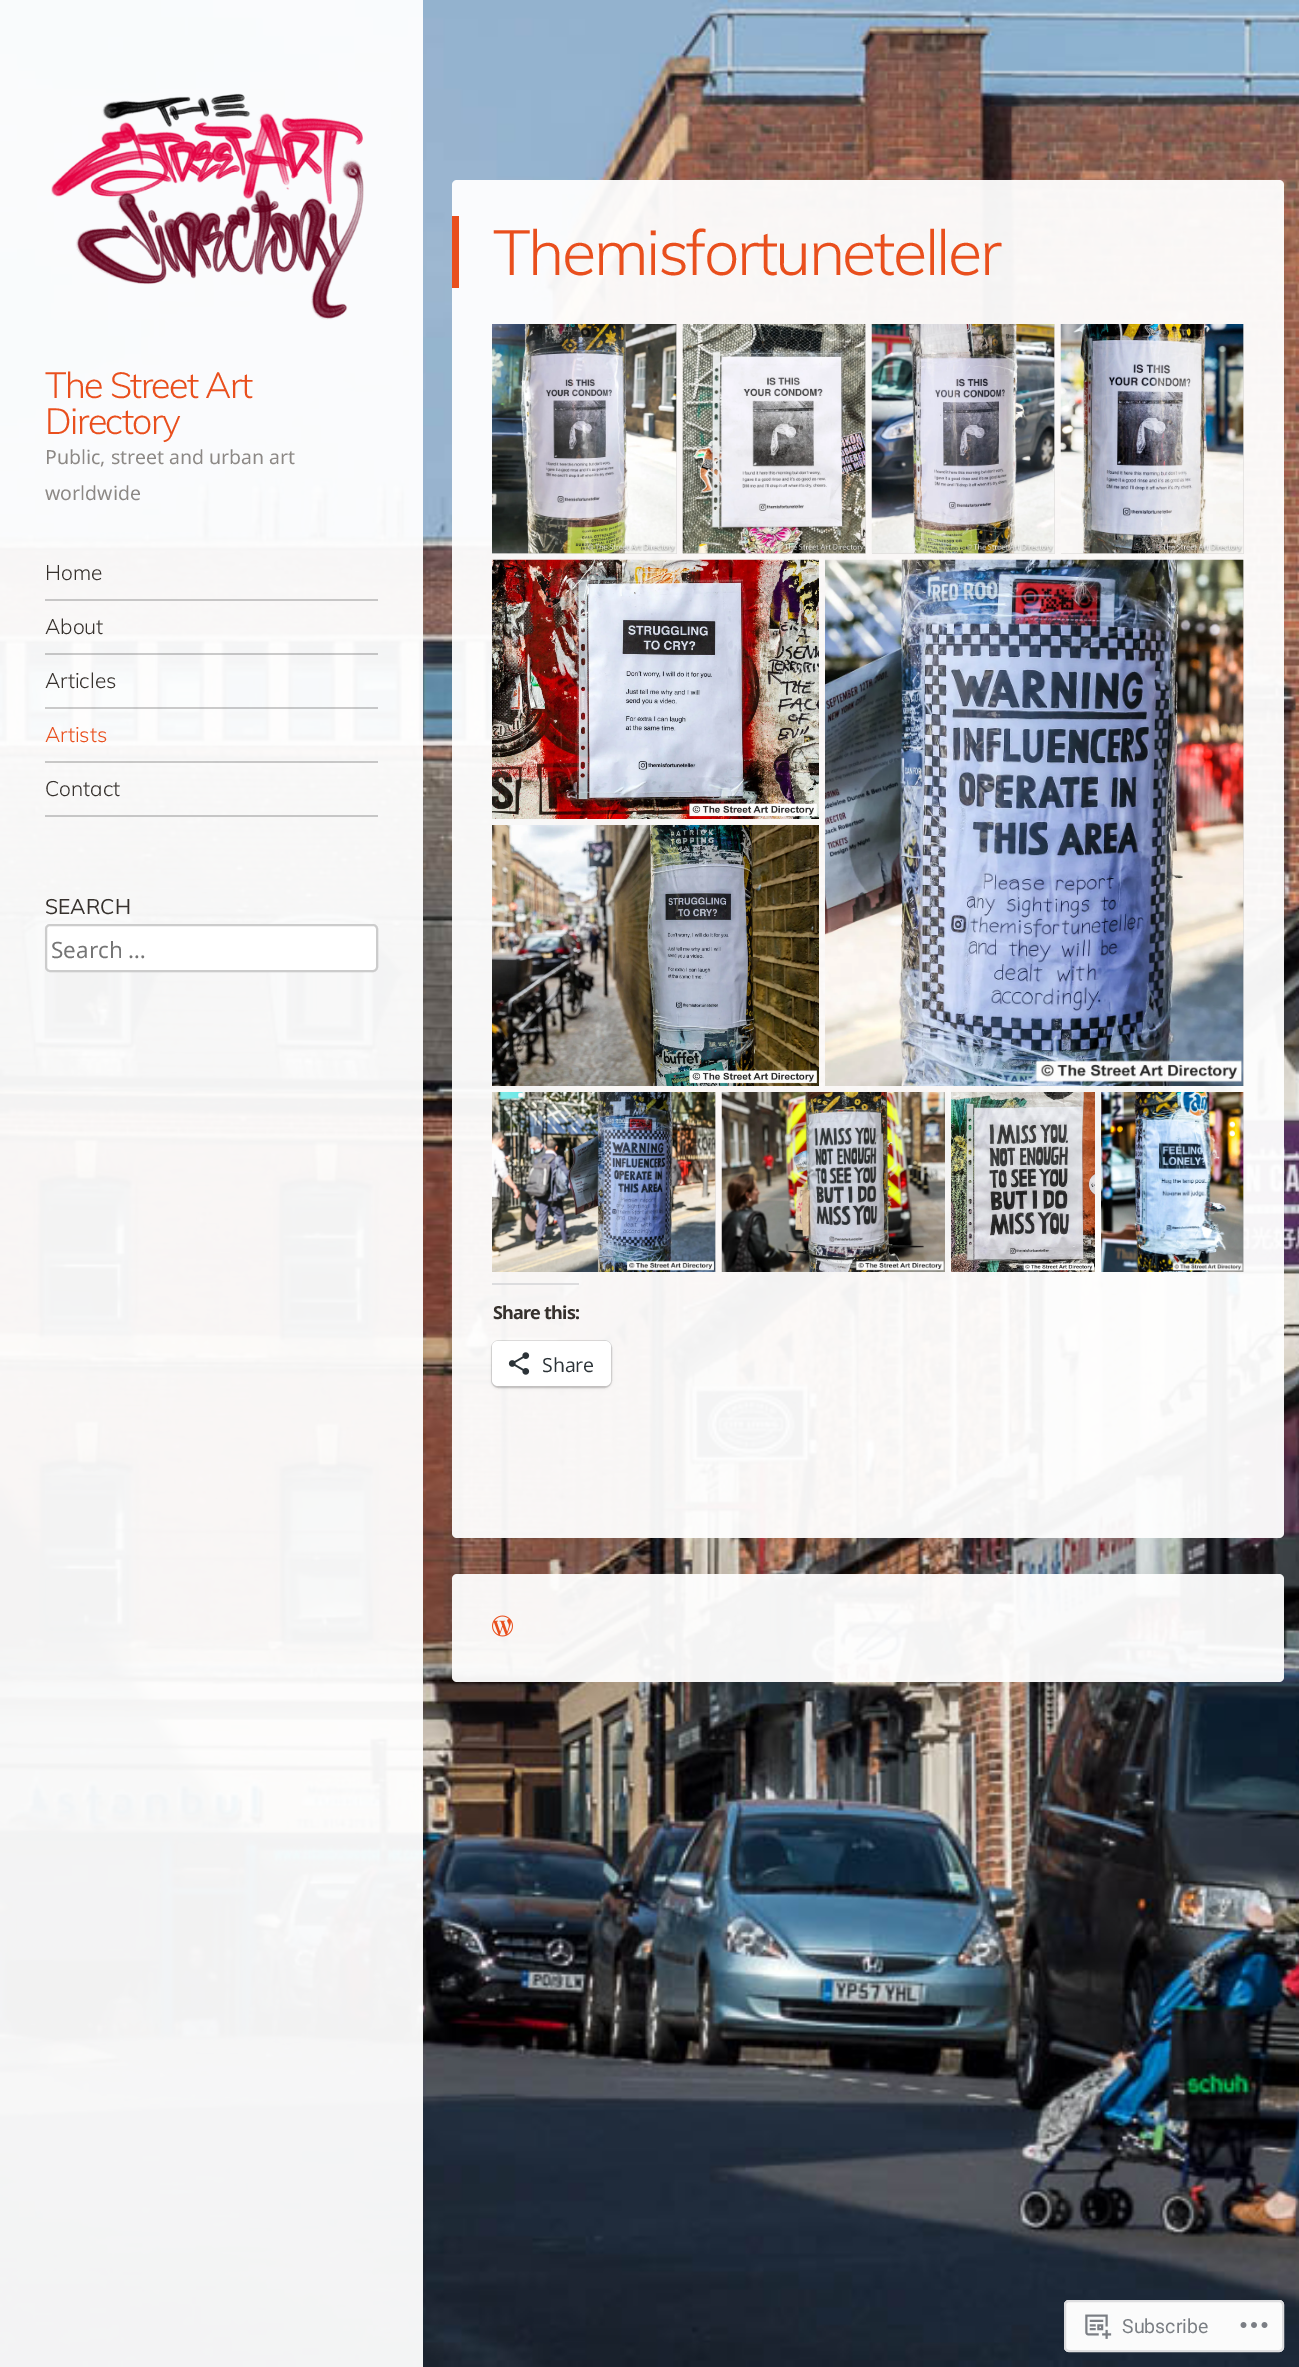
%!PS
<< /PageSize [1299 2367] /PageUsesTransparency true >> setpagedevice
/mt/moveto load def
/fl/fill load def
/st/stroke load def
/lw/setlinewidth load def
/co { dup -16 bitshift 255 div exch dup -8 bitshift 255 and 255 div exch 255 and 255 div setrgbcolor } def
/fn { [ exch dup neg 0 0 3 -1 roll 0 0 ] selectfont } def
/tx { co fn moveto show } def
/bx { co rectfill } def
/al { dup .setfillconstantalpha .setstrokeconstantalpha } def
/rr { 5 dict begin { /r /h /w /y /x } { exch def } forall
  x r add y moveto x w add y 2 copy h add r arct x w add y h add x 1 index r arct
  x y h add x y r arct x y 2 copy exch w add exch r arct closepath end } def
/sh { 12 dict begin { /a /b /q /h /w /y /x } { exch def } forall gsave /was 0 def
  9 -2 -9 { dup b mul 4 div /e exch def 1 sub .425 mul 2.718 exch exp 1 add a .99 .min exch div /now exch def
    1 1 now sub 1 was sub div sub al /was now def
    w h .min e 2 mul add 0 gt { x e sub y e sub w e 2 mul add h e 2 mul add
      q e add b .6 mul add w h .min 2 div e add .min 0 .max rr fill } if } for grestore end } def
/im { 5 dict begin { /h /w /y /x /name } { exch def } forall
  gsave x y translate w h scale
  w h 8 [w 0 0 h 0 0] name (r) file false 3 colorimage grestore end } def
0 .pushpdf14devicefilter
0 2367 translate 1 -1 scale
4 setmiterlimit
0 0 1299 2367 16#FFFFFF bx
(media/1.raw) 0 0 1299 2367 im
0.95 al
0 0 423 2367 16#FFFFFF bx
452 180 832 1358 5 rr fl
1 al
452 216 7 72 16#E94F1D bx
0.1 al
492 324 185 230 16#000000 bx
1 al
(media/2.raw) 492 324 185 230 im
0.1 al
683 324 183 230 16#000000 bx
1 al
(media/3.raw) 682 324 184 230 im
0.1 al
872 324 183 230 16#000000 bx
1 al
(media/4.raw) 871 324 184 230 im
0.1 al
1061 324 183 230 16#000000 bx
1 al
(media/5.raw) 1060 324 184 230 im
(media/6.raw) 492 559 327 260 im
(media/7.raw) 492 825 327 261 im
0.1 al
1243 560 1 526 16#000000 bx
1 al
(media/8.raw) 825 559 419 527 im
0.1 al
715 1092 1 180 16#000000 bx
1 al
(media/9.raw) 492 1092 224 180 im
(media/10.raw) 721 1092 224 180 im
(media/11.raw) 951 1092 144 180 im
0.1 al
1243 1092 1 180 16#000000 bx
1 al
(media/12.raw) 1101 1092 143 180 im
492 1283 87 2 16#DCDCDE bx
0.12 al
16#000000 co
2 lw
492 1341 119 46 7 rr st
1 al
492 1343 119 45 6 1.5 .12 sh
16#FFFFFF co
492 1341 119 45 6 rr fl
(media/13.raw) 508 1352 22 23 im
(media/14.raw) 51 93 313 227 im
45 599 333 2 16#C7C6C6 bx
0.2 al
45 653 333 2 16#000000 bx
45 707 333 2 16#000000 bx
45 761 333 2 16#000000 bx
1 al
45 815 333 2 16#C6C6C6 bx
16#FFFFFF co
45 924 333 48 5 rr fl
0.2 al
16#000000 co
46 925 331 46 4 rr st
0.95 al
16#FFFFFF co
452 1574 832 108 5 rr fl
1 al
(media/15.raw) 492 1615 21 22 im
0.98 al
1064 2300 220 52 5 rr fl
16#DCDCDE co
1065 2301 218 50 4 rr st
1 al
(media/16.raw) 1085 2314 27 25 im
(media/17.raw) 1240 2322 28 6 im
/Muli-Light 63 fn
16#E94F1D co
493 275 mt -2.5 0 (Themisfortuneteller) ashow
/NotoSans-Bold 18 fn
16#36312D co
493 1319 mt -.75 0 (Share this:) ashow
(Share) 542 1372 /OpenSans-Regular 19.5 16#2C3338 tx
/Muli-Light 36 fn
16#E94F1D co
45 398 mt -1.6 0 (The Street Art) ashow
45 434 mt -1.6 0 (Directory) ashow
(Public, street and urban art) 45 464 /NotoSans-Regular 19.5 16#8C8885 tx
(worldwide) 45 500 /NotoSans-Regular 19.5 16#8C8885 tx
(Home) 45 580 /Muli-Light 21 16#36312D tx
(About) 45 634 /Muli-Light 21 16#36312D tx
(Articles) 45 688 /Muli-Light 21 16#36312D tx
(Artists) 45 742 /Muli-Light 21 16#E94F1D tx
(Contact) 45 796 /Muli-Light 21 16#36312D tx
(SEARCH) 45 914 /Muli-Regular 21 16#36312D tx
(Search …) 51 958 /NotoSans-Regular 22.5 16#757575 tx
(Subscribe) 1122 2333 /Roboto-Regular 19.5 16#7B7F84 tx
.poppdf14devicefilter showpage
